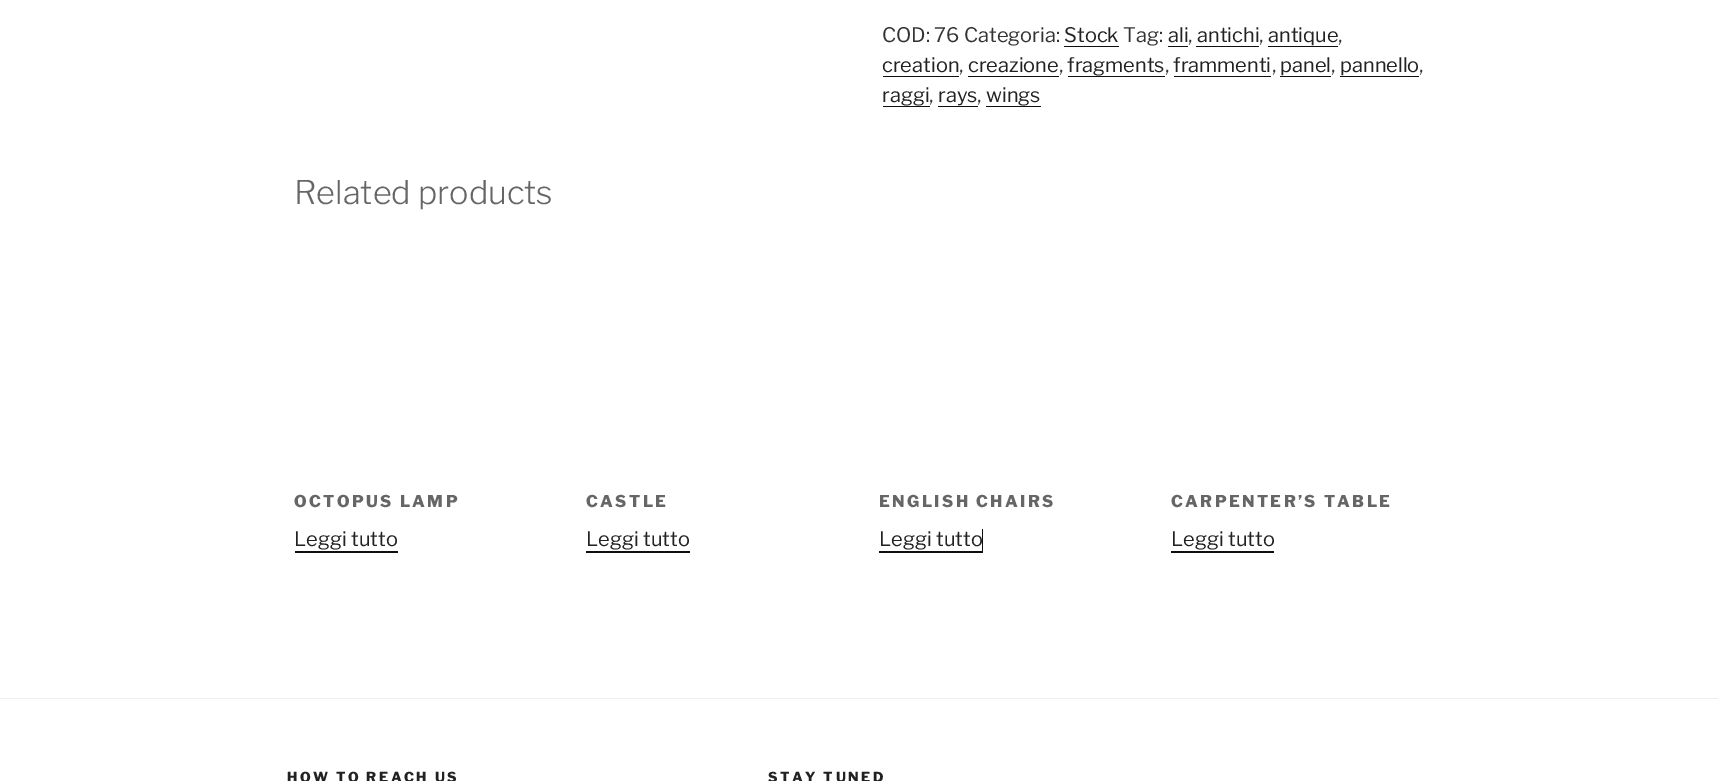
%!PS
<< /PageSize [1718 781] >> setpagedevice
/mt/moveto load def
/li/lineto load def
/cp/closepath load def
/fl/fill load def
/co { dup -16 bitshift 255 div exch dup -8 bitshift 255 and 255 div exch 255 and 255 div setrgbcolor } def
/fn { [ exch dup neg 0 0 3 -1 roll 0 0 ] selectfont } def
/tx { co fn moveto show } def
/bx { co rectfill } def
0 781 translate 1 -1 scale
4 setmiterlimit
0 0 1718 781 16#FFFFFF bx
1064 46 55 1 16#0F0F0F bx
1168 46 20 1 16#0F0F0F bx
1196 46 63 1 16#0F0F0F bx
1268 46 70 1 16#0F0F0F bx
883 76 76 1 16#0F0F0F bx
968 76 91 1 16#0F0F0F bx
1068 76 97 1 16#0F0F0F bx
1174 76 97 1 16#0F0F0F bx
1280 76 51 1 16#0F0F0F bx
1340 76 79 1 16#0F0F0F bx
883 106 47 1 16#0F0F0F bx
938 106 40 1 16#0F0F0F bx
986 106 55 1 16#0F0F0F bx
295 551 mt 295 553 li 398 553 li 398 529 li 398 551 li cp fl
586 529 mt 586 553 li 690 553 li 690 551 li 586 551 li cp fl
879 551 mt 879 553 li 983 553 li 983 529 li 982 529 li 982 551 li cp fl
1171 529 mt 1171 553 li 1274 553 li 1274 529 li 1274 551 li 1171 551 li cp fl
0 698 1718 1 16#EEEEEE bx
(COD: 76 Categoria:) 882 42 /LibreFranklin-Regular 20 16#333333 tx
(Stock) 1064 42 /LibreFranklin-Regular 20 16#222222 tx
(Tag:) 1123 42 /LibreFranklin-Regular 20 16#333333 tx
(ali) 1168 42 /LibreFranklin-Regular 20 16#222222 tx
(,) 1188 42 /LibreFranklin-Regular 20 16#333333 tx
(antichi) 1197 42 /LibreFranklin-Regular 20 16#222222 tx
(,) 1259 42 /LibreFranklin-Regular 20 16#333333 tx
(antique) 1268 42 /LibreFranklin-Regular 20 16#222222 tx
(,) 1338 42 /LibreFranklin-Regular 20 16#333333 tx
(creation) 882 72 /LibreFranklin-Regular 20 16#222222 tx
(,) 959 72 /LibreFranklin-Regular 20 16#333333 tx
(creazione) 968 72 /LibreFranklin-Regular 20 16#222222 tx
(,) 1059 72 /LibreFranklin-Regular 20 16#333333 tx
(fragments) 1067 72 /LibreFranklin-Regular 20 16#222222 tx
(,) 1165 72 /LibreFranklin-Regular 20 16#333333 tx
(frammenti) 1173 72 /LibreFranklin-Regular 20 16#222222 tx
(,) 1272 72 /LibreFranklin-Regular 20 16#333333 tx
(panel) 1280 72 /LibreFranklin-Regular 20 16#222222 tx
(,) 1331 72 /LibreFranklin-Regular 20 16#333333 tx
(pannello) 1340 72 /LibreFranklin-Regular 20 16#222222 tx
(,) 1419 72 /LibreFranklin-Regular 20 16#333333 tx
(raggi) 882 102 /LibreFranklin-Regular 20 16#222222 tx
(,) 929 102 /LibreFranklin-Regular 20 16#333333 tx
(rays) 938 102 /LibreFranklin-Regular 20 16#222222 tx
(,) 977 102 /LibreFranklin-Regular 20 16#333333 tx
(wings) 986 102 /LibreFranklin-Regular 20 16#222222 tx
(Related products) 294 204 /LibreFranklin-Light 32.5 16#666666 tx
/LibreFranklin-ExtraBold 16.25 fn
294 507 mt 2.4 0 (OCTOPUS LAMP) ashow
(Leggi tutto) 294 546 /LibreFranklin-Regular 20 16#222222 tx
/LibreFranklin-ExtraBold 16.25 fn
16#666666 co
586 507 mt 2.4 0 (CASTLE) ashow
(Leggi tutto) 586 546 /LibreFranklin-Regular 20 16#222222 tx
/LibreFranklin-ExtraBold 16.25 fn
16#666666 co
879 507 mt 2.4 0 (ENGLISH CHAIRS) ashow
(Leggi tutto) 879 546 /LibreFranklin-Regular 20 16#222222 tx
/LibreFranklin-ExtraBold 16.25 fn
16#666666 co
1171 507 mt 2.4 0 (CARPENTER’S TABLE) ashow
(Leggi tutto) 1171 546 /LibreFranklin-Regular 20 16#222222 tx
/LibreFranklin-ExtraBold 13.75 fn
287 782 mt 2.5 0 (HOW TO REACH US) ashow
768 782 mt 2.5 0 (STAY TUNED) ashow
showpage
